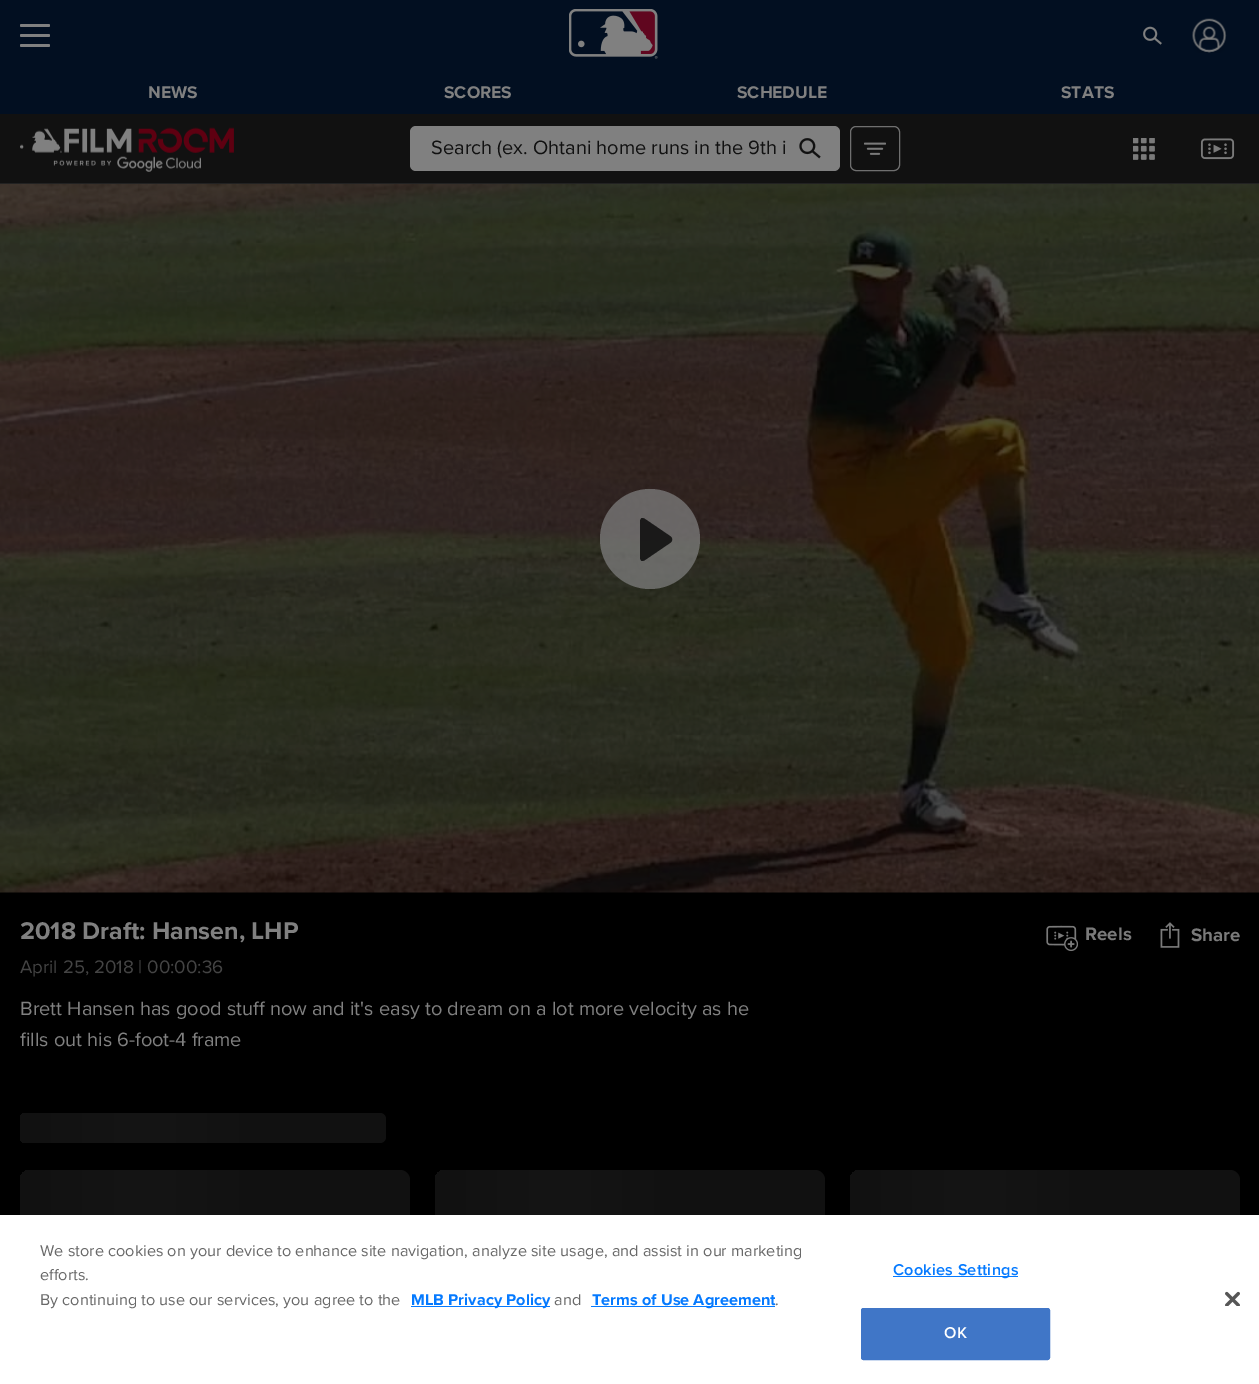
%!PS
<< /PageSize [1259 1384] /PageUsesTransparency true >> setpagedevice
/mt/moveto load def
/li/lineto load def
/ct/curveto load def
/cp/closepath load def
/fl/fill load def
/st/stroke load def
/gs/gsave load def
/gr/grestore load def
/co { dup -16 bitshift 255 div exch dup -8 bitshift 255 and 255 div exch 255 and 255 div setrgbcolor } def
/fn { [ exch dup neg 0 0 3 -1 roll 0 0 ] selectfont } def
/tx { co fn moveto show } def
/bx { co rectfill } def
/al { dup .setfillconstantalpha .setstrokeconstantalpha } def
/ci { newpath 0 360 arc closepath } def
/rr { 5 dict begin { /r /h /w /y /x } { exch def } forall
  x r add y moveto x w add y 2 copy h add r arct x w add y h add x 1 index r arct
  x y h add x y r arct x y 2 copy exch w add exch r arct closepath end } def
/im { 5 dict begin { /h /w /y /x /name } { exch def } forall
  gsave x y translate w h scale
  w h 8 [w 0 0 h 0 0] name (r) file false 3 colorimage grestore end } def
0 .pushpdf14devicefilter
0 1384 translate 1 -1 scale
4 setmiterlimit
0 0 1259 1384 16#000000 bx
0 0 1259 114 16#020F21 bx
16#808080 co
20 24 30 3 1.5 rr fl
20 34 30 3 1.5 rr fl
20 44 30 3 1.5 rr fl
(media/1.raw) 569 9 89 50 im
(media/2.raw) 1143 26 19 19 im
(media/3.raw) 1192 18 35 35 im
0 114 1259 69 16#111111 bx
0 183 1259 1 16#222222 bx
(media/4.raw) 20 127 214 45 im
16#808080 co
410 126 430 45 6 rr fl
(media/5.raw) 799 138 22 21 im
16#6F6F6F co
850.5 126.5 49 44 5.5 rr st
(media/6.raw) 864 142 22 13 im
(media/7.raw) 1133 138 22 22 im
(media/8.raw) 1200 138 35 22 im
(media/9.raw) 0 184 1259 709 im
0.72 al
16#808080 co
650 539 50 ci fl
0.9 al
16#111111 co
670 536 mt 673 538 673 541 670 543 ct 645 560 li 642 562 640 561 640 557 ct 640 522 li 640 518 642 517 645 519 ct cp eofill
1 al
(media/10.raw) 1046 925 32 27 im
(media/11.raw) 1160 922 20 26 im
20 1113 366 30 6 rr fl
gs 26 1113 mt 270 1113 li 270 1143 li 26 1143 li 22.5 1143 20 1140.5 20 1137 ct 20 1119 li 20 1115.5 22.5 1113 26 1113 ct cp clip newpath
<< /ShadingType 2 /ColorSpace /DeviceRGB /Coords [20 1128 270 1128] /Extend [true true] /Function << /FunctionType 3 /Domain [0 1] /Functions [<< /FunctionType 2 /Domain [0 1] /C0 [.067 .067 .067] /C1 [.082 .082 .082] /N 1 >> << /FunctionType 2 /Domain [0 1] /C0 [.082 .082 .082] /C1 [.067 .067 .067] /N 1 >>] /Bounds [.5] /Encode [0 1 0 1] >> >> shfill gr
30 1170 mt 400 1170 li 405.5 1170 410 1174.5 410 1180 ct 410 1383 li 410 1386.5 407.5 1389 404 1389 ct 26 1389 li 22.5 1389 20 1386.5 20 1383 ct 20 1180 li 20 1174.5 24.5 1170 30 1170 ct cp fl
gs 30 1170 mt 270 1170 li 270 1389 li 26 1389 li 22.5 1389 20 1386.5 20 1383 ct 20 1180 li 20 1174.5 24.5 1170 30 1170 ct cp clip newpath
<< /ShadingType 2 /ColorSpace /DeviceRGB /Coords [20 1279 270 1279] /Extend [true true] /Function << /FunctionType 3 /Domain [0 1] /Functions [<< /FunctionType 2 /Domain [0 1] /C0 [.067 .067 .067] /C1 [.082 .082 .082] /N 1 >> << /FunctionType 2 /Domain [0 1] /C0 [.082 .082 .082] /C1 [.067 .067 .067] /N 1 >>] /Bounds [.5] /Encode [0 1 0 1] >> >> shfill gr
445 1170 mt 815 1170 li 820.5 1170 825 1174.5 825 1180 ct 825 1383 li 825 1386.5 822.5 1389 819 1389 ct 441 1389 li 437.5 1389 435 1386.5 435 1383 ct 435 1180 li 435 1174.5 439.5 1170 445 1170 ct cp fl
gs 445 1170 mt 685 1170 li 685 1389 li 441 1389 li 437.5 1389 435 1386.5 435 1383 ct 435 1180 li 435 1174.5 439.5 1170 445 1170 ct cp clip newpath
<< /ShadingType 2 /ColorSpace /DeviceRGB /Coords [435 1279 685 1279] /Extend [true true] /Function << /FunctionType 3 /Domain [0 1] /Functions [<< /FunctionType 2 /Domain [0 1] /C0 [.067 .067 .067] /C1 [.082 .082 .082] /N 1 >> << /FunctionType 2 /Domain [0 1] /C0 [.082 .082 .082] /C1 [.067 .067 .067] /N 1 >>] /Bounds [.5] /Encode [0 1 0 1] >> >> shfill gr
860 1170 mt 1230 1170 li 1235.5 1170 1240 1174.5 1240 1180 ct 1240 1383 li 1240 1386.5 1237.5 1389 1234 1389 ct 856 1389 li 852.5 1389 850 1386.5 850 1383 ct 850 1180 li 850 1174.5 854.5 1170 860 1170 ct cp fl
gs 860 1170 mt 1100 1170 li 1100 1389 li 856 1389 li 852.5 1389 850 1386.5 850 1383 ct 850 1180 li 850 1174.5 854.5 1170 860 1170 ct cp clip newpath
<< /ShadingType 2 /ColorSpace /DeviceRGB /Coords [850 1279 1100 1279] /Extend [true true] /Function << /FunctionType 3 /Domain [0 1] /Functions [<< /FunctionType 2 /Domain [0 1] /C0 [.067 .067 .067] /C1 [.082 .082 .082] /N 1 >> << /FunctionType 2 /Domain [0 1] /C0 [.082 .082 .082] /C1 [.067 .067 .067] /N 1 >>] /Bounds [.5] /Encode [0 1 0 1] >> >> shfill gr
0 1215 1259 169 16#FFFFFF bx
411 1306 139 1 16#057AFF bx
591 1306 184 1 16#057AFF bx
893 1276 125 1 16#057AFF bx
16#4076C7 co
861.5 1308.5 188 51 2 rr gs fl gr
st
(media/12.raw) 1225 1291 15 15 im
(NEWS) 148 98 /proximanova-Bold 17.5 16#808080 tx
(SCORES) 444 98 /proximanova-Bold 17.5 16#808080 tx
(SCHEDULE) 737 98 /proximanova-Bold 17.5 16#808080 tx
(STATS) 1061 98 /proximanova-Bold 17.5 16#808080 tx
(Search \(ex. Ohtani home runs in the 9th i) 431 154 /proximanova-Regular 20 16#111111 tx
(2018 Draft: Hansen, LHP) 20 939 /proximanova-Bold 25 16#808080 tx
(Reels) 1085 940 /proximanova-Bold 18.75 16#7A7A7A tx
(Share) 1191 941 /proximanova-Bold 18.75 16#7A7A7A tx
(April 25, 2018 | 00:00:36) 20 973 /proximanova-Regular 18.75 16#444444 tx
(Brett Hansen has good stuff now and it's easy to dream on a lot more velocity as he) 20 1015 /proximanova-Regular 20 16#808080 tx
(fills out his 6-foot-4 frame) 20 1046 /proximanova-Regular 20 16#808080 tx
(We store cookies on your device to enhance site navigation, analyze site usage, and assist in our marketing) 40 1256 /proximanova-Regular 16.25 16#696969 tx
(efforts.) 40 1280 /proximanova-Regular 16.25 16#696969 tx
(By continuing to use our services, you agree to the) 40 1305 /proximanova-Regular 16.25 16#696969 tx
(MLB Privacy Policy) 411 1305 /proximanova-Bold 16.25 16#057AFF tx
(and) 554 1305 /proximanova-Regular 16.25 16#696969 tx
(Terms of Use Agreement) 592 1305 /proximanova-Bold 16.25 16#057AFF tx
(.) 775 1305 /proximanova-Regular 16.25 16#696969 tx
/ProximaNova-SemiBold 16.25 fn
16#057AFF co
893 1275 mt .2 0 (Cookies Settings) ashow
16#FFFFFF co
944 1338 mt .2 0 (OK) ashow
.poppdf14devicefilter showpage
